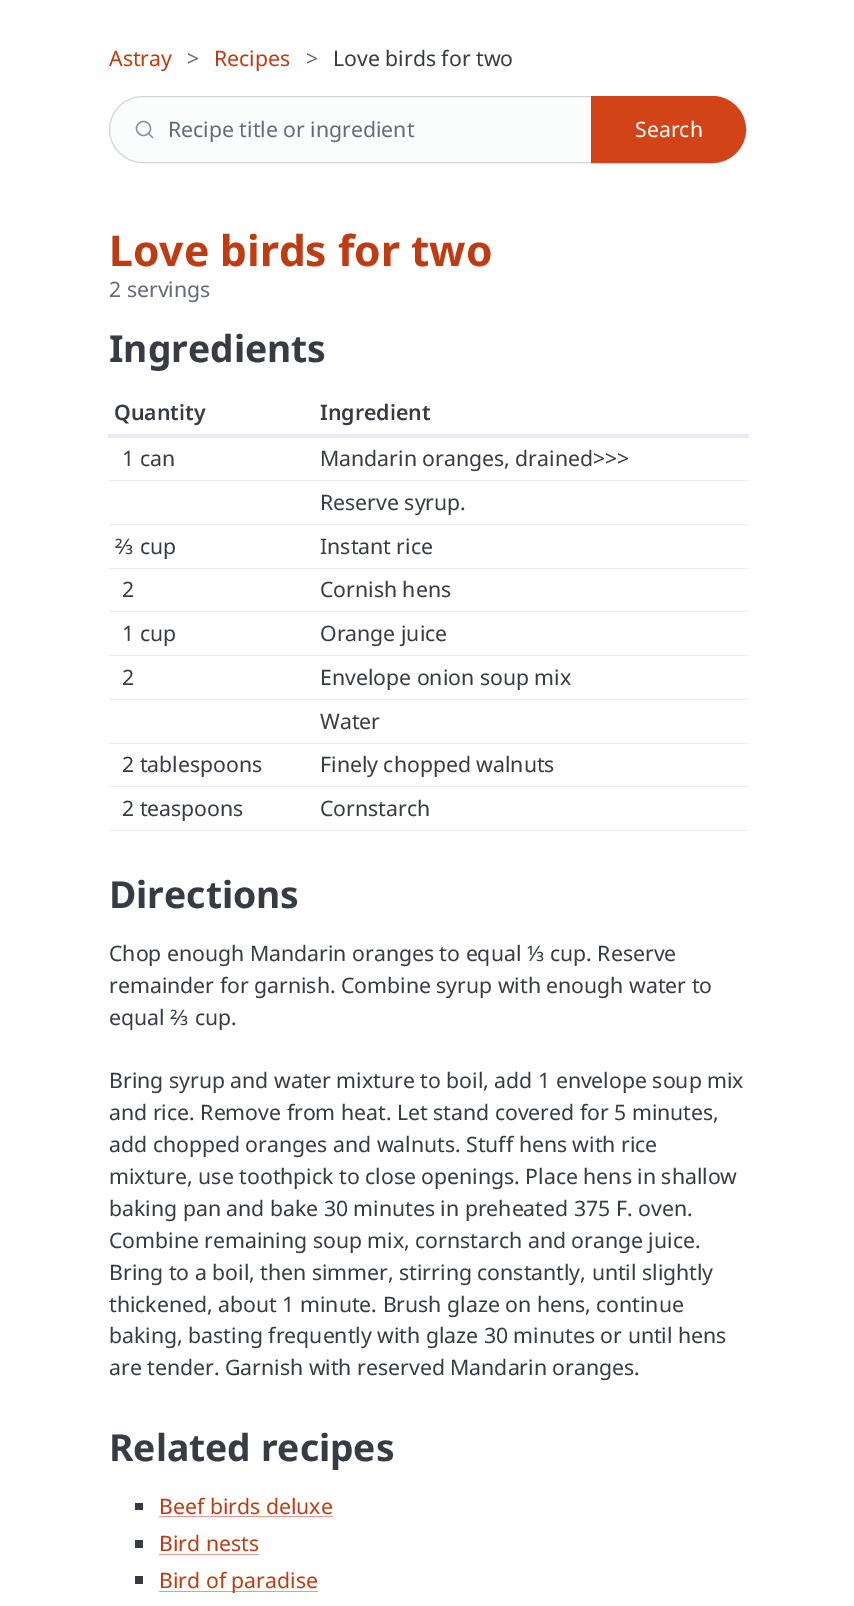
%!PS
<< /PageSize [854 1606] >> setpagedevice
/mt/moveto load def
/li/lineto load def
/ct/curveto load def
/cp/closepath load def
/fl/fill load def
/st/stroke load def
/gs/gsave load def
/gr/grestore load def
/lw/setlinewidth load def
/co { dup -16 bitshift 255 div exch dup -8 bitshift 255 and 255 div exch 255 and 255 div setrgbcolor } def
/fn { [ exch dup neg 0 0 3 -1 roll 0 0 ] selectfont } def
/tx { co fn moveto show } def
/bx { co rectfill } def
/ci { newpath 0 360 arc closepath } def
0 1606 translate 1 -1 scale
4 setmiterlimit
0 0 854 1606 16#FFFFFF bx
16#FBFCFC co
142.5 96 mt 593 96 li 593 163 li 142.5 163 li 124 163 109 148 109 129.5 ct 109 111 124 96 142.5 96 ct cp fl
16#8891A4 co
1.3 lw
143.5 128.5 7 ci st
1 setlinecap
1 setlinejoin
152.5 137.5 mt 148.5 133.5 li st
16#CFD5E2 co
1 lw
0 setlinecap
0 setlinejoin
142.5 96.5 mt 592.5 96.5 li 592.5 162.5 li 142.5 162.5 li 124.5 162.5 109.5 147.5 109.5 129.5 ct 109.5 111.5 124.5 96.5 142.5 96.5 ct cp st
16#D24317 co
591.5 96.5 mt 712.5 96.5 li 730.5 96.5 745.5 111.5 745.5 129.5 ct 745.5 147.5 730.5 162.5 712.5 162.5 ct 591.5 162.5 li cp gs fl gr
st
108 434 641 4 16#E7EAF0 bx
109 480 639 1 16#E7EAF0 bx
109 524 639 1 16#E7EAF0 bx
109 568 639 1 16#E7EAF0 bx
109 611 639 1 16#E7EAF0 bx
109 655 639 1 16#E7EAF0 bx
109 699 639 1 16#E7EAF0 bx
109 743 639 1 16#E7EAF0 bx
109 786 639 1 16#E7EAF0 bx
109 830 639 1 16#E7EAF0 bx
135 1503 8 7 16#373C44 bx
159 1516 174 1 16#DE9E89 bx
135 1540 8 8 16#373C44 bx
159 1554 100 1 16#DE9E89 bx
135 1576 8 8 16#373C44 bx
159 1591 159 1 16#DE9E89 bx
(Astray) 109 66 /NotoSans-Regular 21.25 16#BD3C13 tx
(>) 187 66 /NotoSans-Regular 21.25 16#646B79 tx
(Recipes) 214 66 /NotoSans-Regular 21.25 16#BD3C13 tx
(>) 306 66 /NotoSans-Regular 21.25 16#646B79 tx
(Love birds for two) 333 66 /NotoSans-Regular 21.25 16#373C44 tx
(Recipe title or ingredient) 168 137 /NotoSans-Regular 21.25 16#646B79 tx
(Search) 635 137 /NotoSans-Regular 21.25 16#FFFFFF tx
(Love birds for two) 109 266 /NotoSans-Bold 42.5 16#BD3C13 tx
(2 servings) 109 297 /NotoSans-Regular 21.25 16#646B79 tx
(Ingredients) 109 362 /NotoSans-Bold 37.25 16#373C44 tx
(Quantity) 114 420 /NotoSans-SemiBold 21.25 16#373C44 tx
(Ingredient) 320 420 /NotoSans-SemiBold 21.25 16#373C44 tx
(1 can) 122 466 /NotoSans-Regular 21.25 16#373C44 tx
(Mandarin oranges, drained>>>) 320 466 /NotoSans-Regular 21.25 16#373C44 tx
(Reserve syrup.) 320 510 /NotoSans-Regular 21.25 16#373C44 tx
(⅔ cup) 115 554 /NotoSans-Regular 21.25 16#373C44 tx
(Instant rice) 320 554 /NotoSans-Regular 21.25 16#373C44 tx
(2) 122 597 /NotoSans-Regular 21.25 16#373C44 tx
(Cornish hens) 320 597 /NotoSans-Regular 21.25 16#373C44 tx
(1 cup) 122 641 /NotoSans-Regular 21.25 16#373C44 tx
(Orange juice) 320 641 /NotoSans-Regular 21.25 16#373C44 tx
(2) 122 685 /NotoSans-Regular 21.25 16#373C44 tx
(Envelope onion soup mix) 320 685 /NotoSans-Regular 21.25 16#373C44 tx
(Water) 320 729 /NotoSans-Regular 21.25 16#373C44 tx
(2 tablespoons) 122 772 /NotoSans-Regular 21.25 16#373C44 tx
(Finely chopped walnuts) 320 772 /NotoSans-Regular 21.25 16#373C44 tx
(2 teaspoons) 122 816 /NotoSans-Regular 21.25 16#373C44 tx
(Cornstarch) 320 816 /NotoSans-Regular 21.25 16#373C44 tx
(Directions) 109 908 /NotoSans-Bold 37.25 16#373C44 tx
(Chop enough Mandarin oranges to equal ⅓ cup. Reserve) 109 961 /NotoSans-Regular 21.25 16#373C44 tx
(remainder for garnish. Combine syrup with enough water to) 109 993 /NotoSans-Regular 21.25 16#373C44 tx
(equal ⅔ cup.) 109 1025 /NotoSans-Regular 21.25 16#373C44 tx
(Bring syrup and water mixture to boil, add 1 envelope soup mix) 109 1088 /NotoSans-Regular 21.25 16#373C44 tx
(and rice. Remove from heat. Let stand covered for 5 minutes,) 109 1120 /NotoSans-Regular 21.25 16#373C44 tx
(add chopped oranges and walnuts. Stuff hens with rice) 109 1152 /NotoSans-Regular 21.25 16#373C44 tx
(mixture, use toothpick to close openings. Place hens in shallow) 109 1184 /NotoSans-Regular 21.25 16#373C44 tx
(baking pan and bake 30 minutes in preheated 375 F. oven.) 109 1216 /NotoSans-Regular 21.25 16#373C44 tx
(Combine remaining soup mix, cornstarch and orange juice.) 109 1248 /NotoSans-Regular 21.25 16#373C44 tx
(Bring to a boil, then simmer, stirring constantly, until slightly) 109 1280 /NotoSans-Regular 21.25 16#373C44 tx
(thickened, about 1 minute. Brush glaze on hens, continue) 109 1312 /NotoSans-Regular 21.25 16#373C44 tx
(baking, basting frequently with glaze 30 minutes or until hens) 109 1343 /NotoSans-Regular 21.25 16#373C44 tx
(are tender. Garnish with reserved Mandarin oranges.) 109 1375 /NotoSans-Regular 21.25 16#373C44 tx
(Related recipes) 109 1461 /NotoSans-Bold 37.25 16#373C44 tx
(Beef birds deluxe) 159 1514 /NotoSans-Regular 21.25 16#BD3C13 tx
(Bird nests) 159 1551 /NotoSans-Regular 21.25 16#BD3C13 tx
(Bird of paradise) 159 1588 /NotoSans-Regular 21.25 16#BD3C13 tx
showpage
